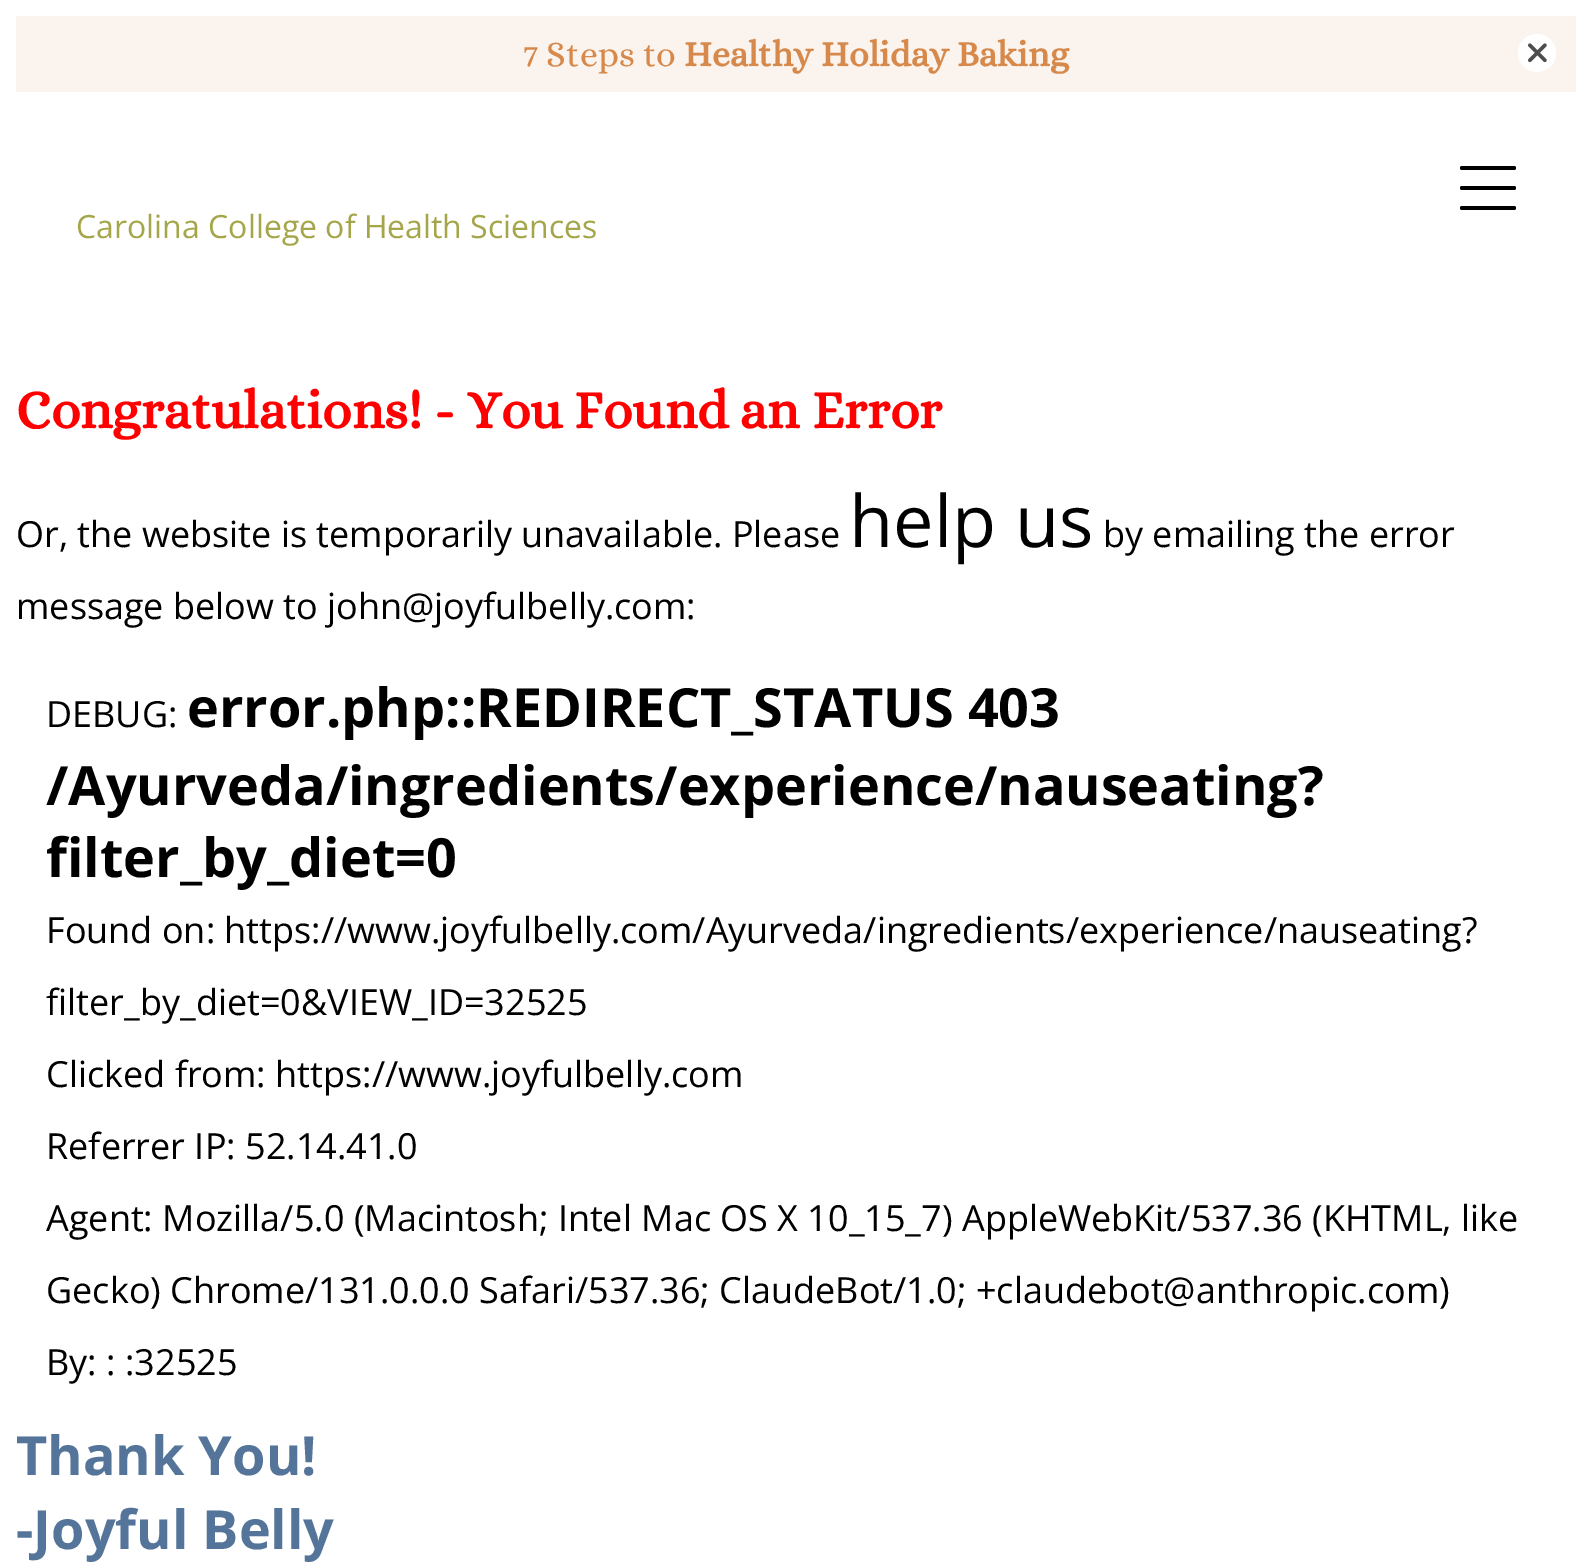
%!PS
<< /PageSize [1592 1566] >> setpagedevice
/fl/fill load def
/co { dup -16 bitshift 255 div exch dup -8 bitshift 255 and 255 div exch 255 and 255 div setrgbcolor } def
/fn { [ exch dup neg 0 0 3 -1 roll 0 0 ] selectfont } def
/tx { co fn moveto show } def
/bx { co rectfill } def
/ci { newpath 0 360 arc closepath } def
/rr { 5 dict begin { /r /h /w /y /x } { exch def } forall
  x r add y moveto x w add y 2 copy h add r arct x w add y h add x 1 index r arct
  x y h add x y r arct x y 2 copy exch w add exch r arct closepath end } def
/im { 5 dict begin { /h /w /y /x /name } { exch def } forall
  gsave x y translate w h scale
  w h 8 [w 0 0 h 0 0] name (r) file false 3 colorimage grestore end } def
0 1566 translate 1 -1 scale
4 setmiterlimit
0 0 1592 1566 16#FFFFFF bx
16 16 1560 76 16#FBF3ED bx
16#FFFFFF co
1537 53 19 ci fl
(media/1.raw) 1528 43 19 20 im
16#000000 co
1460 166 56 4 2 rr fl
1460 186 56 4 2 rr fl
1460 206 56 4 2 rr fl
(7 Steps to) 523 66 /Alice-Regular 36 16#D7894B tx
(Healthy Holiday Baking) 684 66 /Alice-Bold 36 16#D7894B tx
(Carolina College of Health Sciences) 76 238 /OpenSans-Regular 32 16#A4A649 tx
(Congratulations! - You Found an Error) 16 428 /Alice-Bold 54 16#FF0000 tx
(Or, the website is temporarily unavailable. Please) 16 547 /OpenSans-Regular 36 16#000000 tx
(help us) 849 547 /OpenSans-Regular 72 16#000000 tx
(by emailing the error) 1103 547 /OpenSans-Regular 36 16#000000 tx
(message below to john@joyfulbelly.com:) 16 619 /OpenSans-Regular 36 16#000000 tx
(DEBUG:) 46 727 /OpenSans-Regular 36 16#000000 tx
(error.php::REDIRECT_STATUS 403) 187 727 /OpenSans-Bold 54 16#000000 tx
(/Ayurveda/ingredients/experience/nauseating?) 46 805 /OpenSans-Bold 54 16#000000 tx
(filter_by_diet=0) 46 877 /OpenSans-Bold 54 16#000000 tx
(Found on: https://www.joyfulbelly.com/Ayurveda/ingredients/experience/nauseating?) 46 943 /OpenSans-Regular 36 16#000000 tx
(filter_by_diet=0&VIEW_ID=32525) 46 1015 /OpenSans-Regular 36 16#000000 tx
(Clicked from: https://www.joyfulbelly.com) 46 1087 /OpenSans-Regular 36 16#000000 tx
(Referrer IP: 52.14.41.0) 46 1159 /OpenSans-Regular 36 16#000000 tx
(Agent: Mozilla/5.0 \(Macintosh; Intel Mac OS X 10_15_7\) AppleWebKit/537.36 \(KHTML, like) 46 1231 /OpenSans-Regular 36 16#000000 tx
(Gecko\) Chrome/131.0.0.0 Safari/537.36; ClaudeBot/1.0; +claudebot@anthropic.com\)) 46 1303 /OpenSans-Regular 36 16#000000 tx
(By: : :32525) 46 1375 /OpenSans-Regular 36 16#000000 tx
(Thank You!) 16 1475 /OpenSans-Bold 54 16#54749A tx
(-Joyful Belly) 16 1549 /OpenSans-Bold 54 16#54749A tx
showpage
